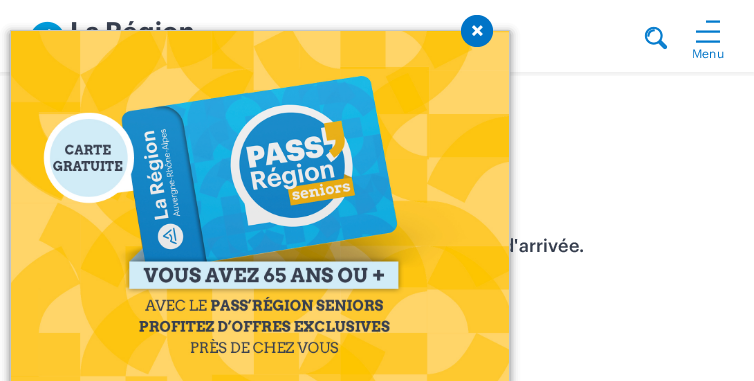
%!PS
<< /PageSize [754 381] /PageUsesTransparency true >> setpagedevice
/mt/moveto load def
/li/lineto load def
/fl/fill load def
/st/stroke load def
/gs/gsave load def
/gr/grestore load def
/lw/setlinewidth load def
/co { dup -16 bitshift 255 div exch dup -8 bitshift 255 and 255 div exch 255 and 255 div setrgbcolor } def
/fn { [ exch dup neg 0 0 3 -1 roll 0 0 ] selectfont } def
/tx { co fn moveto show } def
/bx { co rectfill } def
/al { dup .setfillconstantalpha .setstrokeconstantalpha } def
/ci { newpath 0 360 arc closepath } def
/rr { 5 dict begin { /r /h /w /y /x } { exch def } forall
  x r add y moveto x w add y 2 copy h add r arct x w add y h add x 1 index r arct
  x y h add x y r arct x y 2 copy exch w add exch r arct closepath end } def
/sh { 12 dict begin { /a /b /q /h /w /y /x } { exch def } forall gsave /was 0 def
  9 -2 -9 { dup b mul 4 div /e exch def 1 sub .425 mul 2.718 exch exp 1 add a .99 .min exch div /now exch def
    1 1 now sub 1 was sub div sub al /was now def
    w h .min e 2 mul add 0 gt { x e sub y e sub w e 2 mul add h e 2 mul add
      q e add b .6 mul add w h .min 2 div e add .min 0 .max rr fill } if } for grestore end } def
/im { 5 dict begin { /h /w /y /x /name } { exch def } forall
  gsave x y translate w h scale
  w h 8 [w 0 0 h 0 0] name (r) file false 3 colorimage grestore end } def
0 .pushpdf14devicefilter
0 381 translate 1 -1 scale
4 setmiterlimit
0 0 754 381 16#FFFFFF bx
gs
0 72 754 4 rectclip
16#000000 co
0 2 754 72 0 3 .08 sh
gr
(media/2.raw) 32 21 161 9 im
16#000000 co
10 33 500 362 0 4.5 .5 sh
(media/3.raw) 644 26 24 24 im
16#017ACD co
2 lw
706 21.5 mt 720 21.5 li 696 31.5 mt 720 31.5 li 696 41.5 mt 720 41.5 li st
(Menu) 692 58 /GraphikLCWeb-Regular 12 16#0074C7 tx
(d'arrivée.) 503 252 /Graphik-Medium 18 16#353D4D tx
16#C1C6CA co
1 lw
10.5 30.5 499 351 rectstroke
(media/1.raw) 11 31 498 350 im
16#0074C7 co
477 31 16 ci fl
(×) 471 38 /Graphik-Bold 22 16#FFFFFF tx
.poppdf14devicefilter showpage
